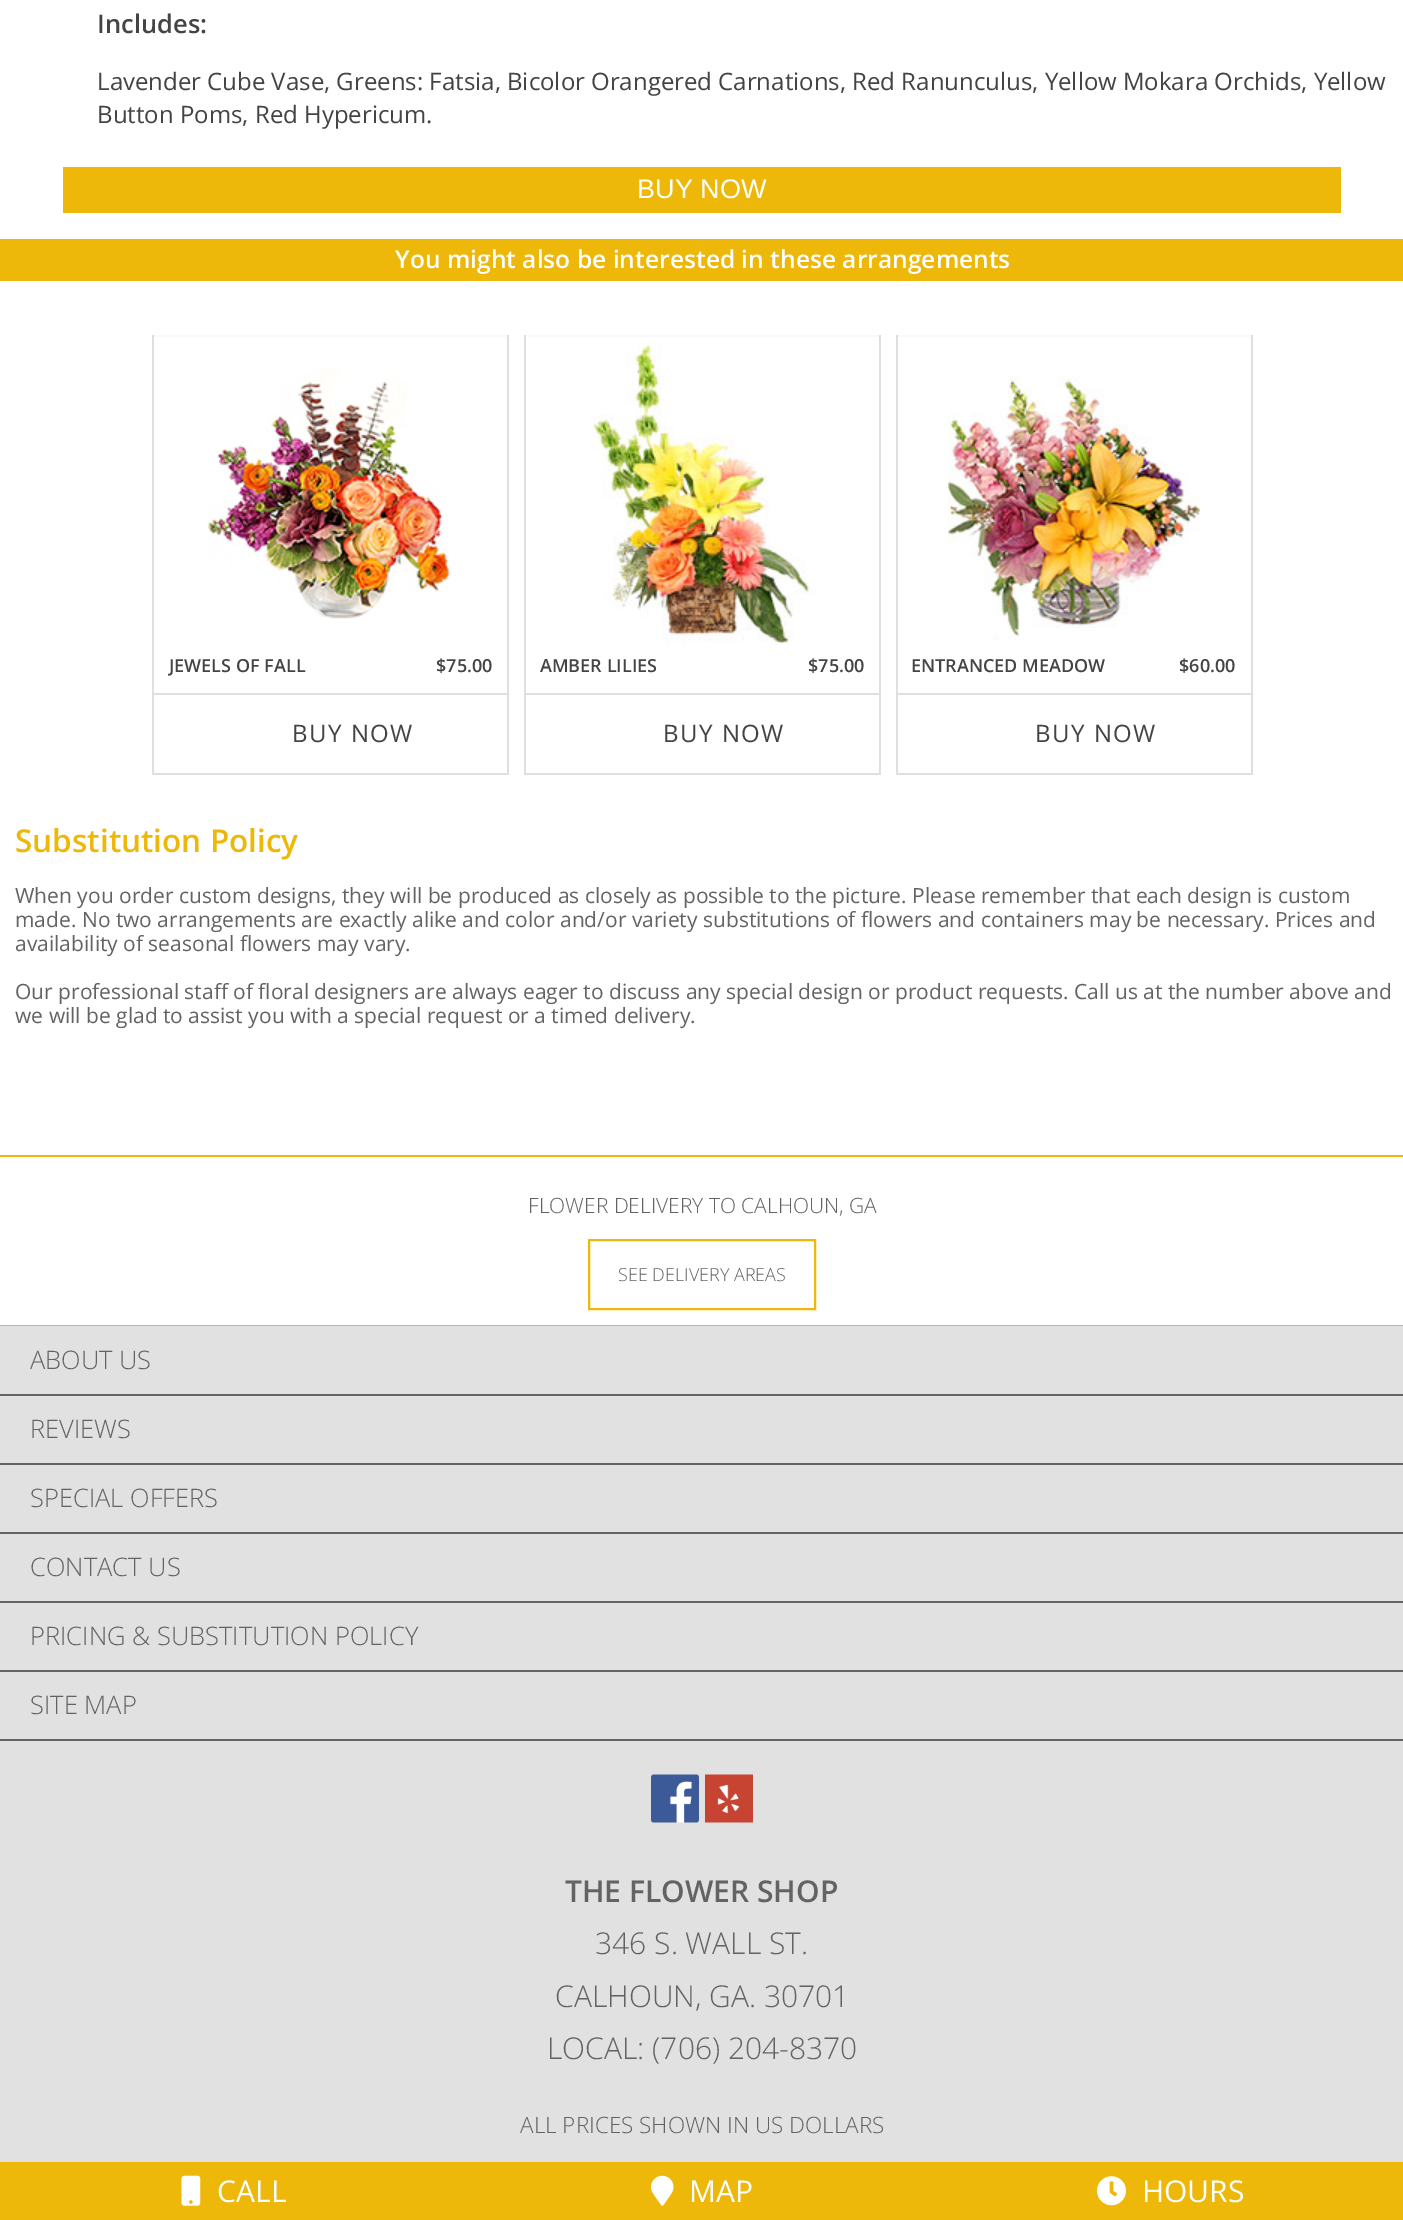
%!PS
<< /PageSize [1403 2220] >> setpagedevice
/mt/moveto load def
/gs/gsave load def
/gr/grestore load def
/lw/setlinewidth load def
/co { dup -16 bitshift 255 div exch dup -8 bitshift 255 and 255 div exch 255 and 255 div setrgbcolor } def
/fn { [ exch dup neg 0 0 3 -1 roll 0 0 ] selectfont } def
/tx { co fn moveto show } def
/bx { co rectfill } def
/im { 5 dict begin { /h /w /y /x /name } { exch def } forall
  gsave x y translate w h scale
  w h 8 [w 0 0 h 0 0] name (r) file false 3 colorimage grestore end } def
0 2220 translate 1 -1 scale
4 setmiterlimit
0 0 1403 2220 16#FFFFFF bx
63 167 1278 46 16#EDB809 bx
0 239 1403 42 16#EDB809 bx
152 335 357 2 16#F9F9F9 bx
507 335 2 439 16#E2DEDD bx
152 773 357 2 16#E2DEDD bx
152 335 2 439 16#E2DEDD bx
(media/1.raw) 207 368 244 251 im
153 693 354 2 16#E2DEDD bx
524 335 357 2 16#F9F9F9 bx
879 335 2 439 16#E2DEDD bx
524 773 357 2 16#E2DEDD bx
524 335 2 439 16#E2DEDD bx
(media/2.raw) 590 342 226 302 im
525 693 354 2 16#E2DEDD bx
896 335 357 2 16#F9F9F9 bx
1251 335 2 439 16#E2DEDD bx
896 773 357 2 16#E2DEDD bx
896 335 2 439 16#E2DEDD bx
(media/3.raw) 948 376 252 265 im
897 693 354 2 16#E2DEDD bx
0 1155 1403 2 16#EDB809 bx
0 1325 1403 1 16#EDB809 bx
2 lw
589 1240 226 69 rectstroke
0 1326 1403 836 16#E1E1E1 bx
0 1394 1403 2 16#636363 bx
0 1463 1403 2 16#636363 bx
0 1532 1403 2 16#636363 bx
0 1601 1403 2 16#636363 bx
0 1670 1403 2 16#636363 bx
0 1739 1403 2 16#636363 bx
(media/4.raw) 651 1774 48 49 im
(media/5.raw) 705 1774 48 49 im
0 2162 1403 58 16#EDB809 bx
(media/6.raw) 181 2175 20 31 im
(media/7.raw) 651 2175 23 31 im
(media/8.raw) 1097 2176 29 30 im
(Includes:) 97 33 /OpenSans-SemiBold 25.5 16#444444 tx
(Lavender Cube Vase, Greens: Fatsia, Bicolor Orangered Carnations, Red Ranunculus, Yellow Mokara Orchids, Yellow) 97 90 /OpenSans-Regular 24 16#444444 tx
(Button Poms, Red Hypericum.) 97 123 /OpenSans-Regular 24 16#444444 tx
(BUY NOW) 637 198 /LiberationSans-Regular 27 16#FFFFFF tx
(You might also be interested in these arrangements) 395 268 /OpenSans-SemiBold 24.6 16#FFFFFF tx
gs
168 653 218 25 rectclip
(JEWELS OF FALL) 169 672 /OpenSans-SemiBold 18 16#444444 tx
gr
($75.00) 436 672 /OpenSans-SemiBold 18 16#444444 tx
/OpenSans-Regular 24 fn
292 742 mt 1.5 0 (BUY NOW) ashow
(AMBER LILIES) 540 672 /OpenSans-SemiBold 18 16#444444 tx
($75.00) 808 672 /OpenSans-SemiBold 18 16#444444 tx
/OpenSans-Regular 24 fn
663 742 mt 1.5 0 (BUY NOW) ashow
(ENTRANCED MEADOW) 911 672 /OpenSans-SemiBold 18 16#444444 tx
($60.00) 1179 672 /OpenSans-SemiBold 18 16#444444 tx
/OpenSans-Regular 24 fn
1035 742 mt 1.5 0 (BUY NOW) ashow
(Substitution Policy) 15 852 /OpenSans-SemiBold 31.5 16#EDB809 tx
(When you order custom designs, they will be produced as closely as possible to the picture. Please remember that each design is custom) 15 903 /OpenSans-Regular 21 16#636363 tx
(made. No two arrangements are exactly alike and color and/or variety substitutions of flowers and containers may be necessary. Prices and) 15 927 /OpenSans-Regular 21 16#636363 tx
(availability of seasonal flowers may vary.) 15 951 /OpenSans-Regular 21 16#636363 tx
(Our professional staff of floral designers are always eager to discuss any special design or product requests. Call us at the number above and) 15 999 /OpenSans-Regular 21 16#636363 tx
(we will be glad to assist you with a special request or a timed delivery.) 15 1023 /OpenSans-Regular 21 16#636363 tx
(FLOWER DELIVERY TO CALHOUN, GA) 528 1213 /OpenSans-Light 21 16#636363 tx
(SEE DELIVERY AREAS) 618 1281 /OpenSans-Light 18 16#636363 tx
(ABOUT US) 30 1369 /OpenSans-Light 25.5 16#636363 tx
(REVIEWS) 30 1438 /OpenSans-Light 25.5 16#636363 tx
(SPECIAL OFFERS) 30 1507 /OpenSans-Light 25.5 16#636363 tx
(CONTACT US) 30 1576 /OpenSans-Light 25.5 16#636363 tx
(PRICING & SUBSTITUTION POLICY) 30 1645 /OpenSans-Light 25.5 16#636363 tx
(SITE MAP) 30 1714 /OpenSans-Light 25.5 16#636363 tx
(THE FLOWER SHOP) 565 1902 /OpenSans-SemiBold 30 16#636363 tx
(346 S. WALL ST.) 595 1954 /OpenSans-Light 30 16#636363 tx
(CALHOUN, GA. 30701) 555 2007 /OpenSans-Light 30 16#636363 tx
(LOCAL: \(706\) 204-8370) 547 2059 /OpenSans-Light 30 16#636363 tx
(ALL PRICES SHOWN IN US DOLLARS) 520 2133 /OpenSans-Light 22.5 16#636363 tx
(CALL) 217 2202 /OpenSans-Regular 30 16#FFFFFF tx
(MAP) 689 2202 /OpenSans-Regular 30 16#FFFFFF tx
(HOURS) 1142 2202 /OpenSans-Regular 30 16#FFFFFF tx
showpage
